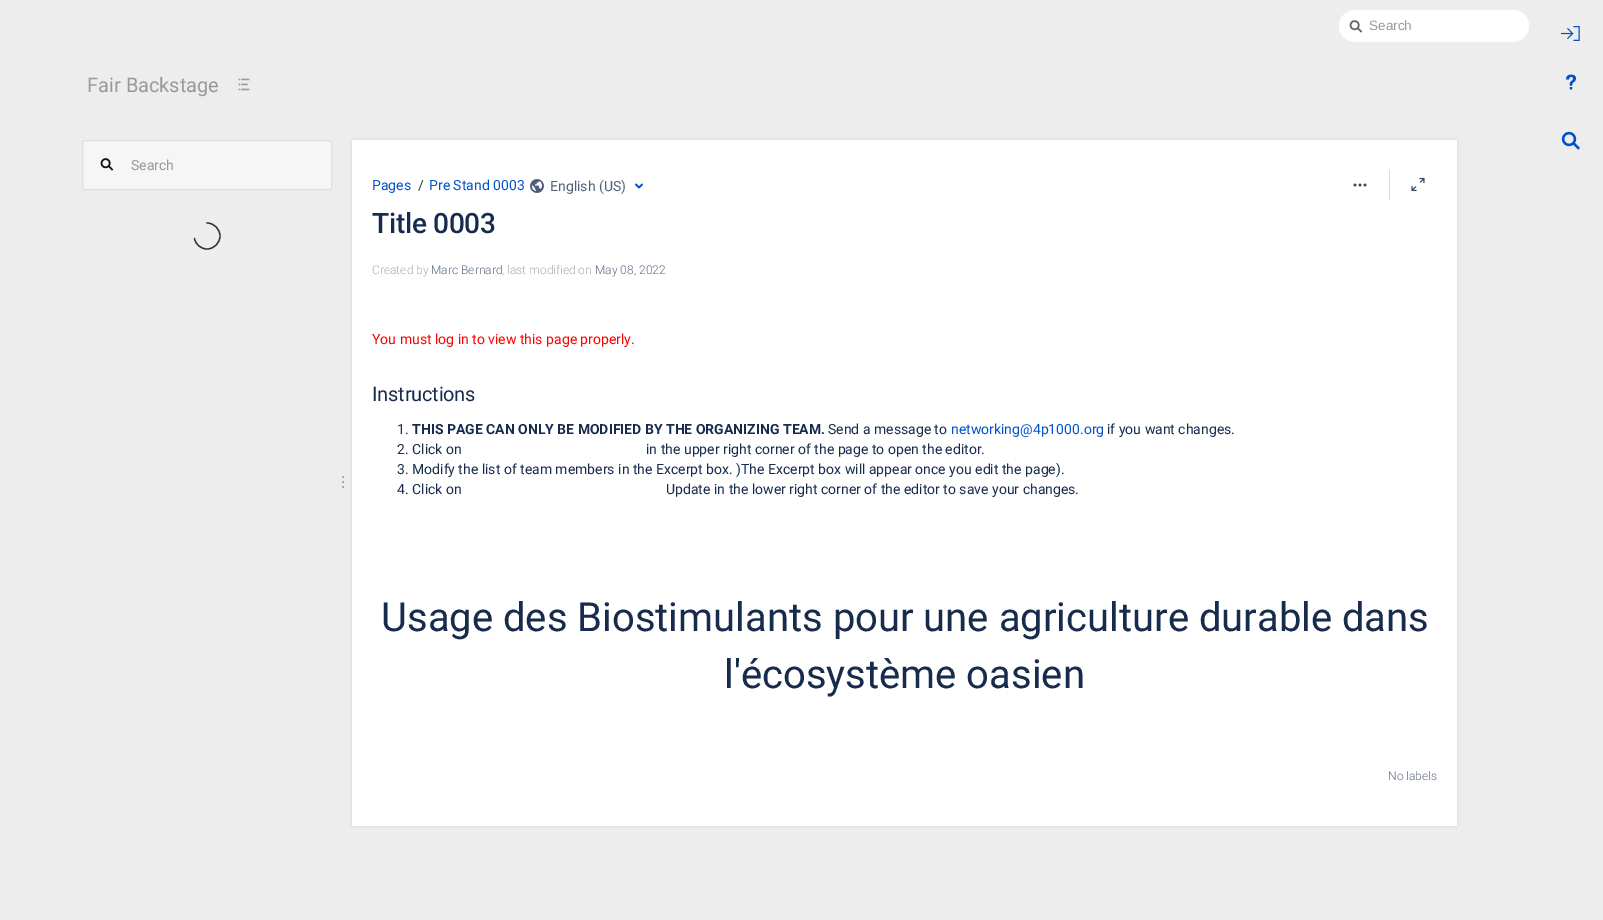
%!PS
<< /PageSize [1603 920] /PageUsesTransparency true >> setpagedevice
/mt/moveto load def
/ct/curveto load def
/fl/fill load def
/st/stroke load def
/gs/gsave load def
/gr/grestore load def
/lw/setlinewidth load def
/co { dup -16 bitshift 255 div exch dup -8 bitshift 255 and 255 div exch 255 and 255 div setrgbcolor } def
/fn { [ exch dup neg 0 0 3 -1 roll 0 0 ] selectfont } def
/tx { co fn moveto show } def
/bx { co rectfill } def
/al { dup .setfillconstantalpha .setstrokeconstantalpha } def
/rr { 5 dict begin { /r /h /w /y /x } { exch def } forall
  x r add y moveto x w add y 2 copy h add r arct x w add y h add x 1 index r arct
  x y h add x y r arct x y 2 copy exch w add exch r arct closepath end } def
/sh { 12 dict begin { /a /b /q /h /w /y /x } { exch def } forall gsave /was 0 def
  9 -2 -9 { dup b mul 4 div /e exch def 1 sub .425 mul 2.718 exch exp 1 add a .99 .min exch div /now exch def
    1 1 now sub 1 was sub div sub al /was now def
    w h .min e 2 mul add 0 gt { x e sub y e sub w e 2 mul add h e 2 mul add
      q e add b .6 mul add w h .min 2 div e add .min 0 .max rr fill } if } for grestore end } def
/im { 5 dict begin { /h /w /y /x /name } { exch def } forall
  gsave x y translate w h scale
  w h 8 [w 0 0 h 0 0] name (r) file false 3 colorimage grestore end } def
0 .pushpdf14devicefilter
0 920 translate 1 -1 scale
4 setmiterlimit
0 0 1603 920 16#EDEDED bx
16#FFFFFF co
1339 10 190 32 16 rr fl
(media/1.raw) 1349 20 14 13 im
(media/2.raw) 238 78 12 13 im
16#F6F6F6 co
82.5 140.5 249 49 2.5 rr gs fl gr
16#DDDDDD co
st
(media/3.raw) 100 158 14 13 im
16#333333 co
1.3 lw
1 setlinecap
207 223 mt 214 223 220 229 220 236 ct 220 243 214 249 207 249 ct 201 249 195.5 244.5 194.5 238.5 ct st
(media/4.raw) 342 476 2 12 im
16#000000 co
352 140 1105 686 0 1.5 .1 sh
352 140 1105 686 16#FFFFFF bx
(media/5.raw) 530 179 14 14 im
(media/6.raw) 635 183 8 6 im
(media/7.raw) 1353 183 14 4 im
1389 170 1 30 16#DDDDDD bx
(media/8.raw) 1411 177 14 14 im
(media/9.raw) 1561 26 19 15 im
(media/10.raw) 1566 74 10 16 im
(media/11.raw) 1561 131 19 19 im
(Search) 1369 30 /LiberationSans-Regular 13.5 16#999999 tx
(Fair Backstage) 87 92 /Roboto-Regular 20 16#999999 tx
(Search) 131 170 /Roboto-Regular 14 16#999999 tx
(Pages) 372 190 /Roboto-Regular 14 16#0052CC tx
(/) 418 190 /Roboto-Regular 14 16#333333 tx
(Pre Stand 0003) 429 190 /Roboto-Regular 14 16#0052CC tx
(English \(US\)) 550 191 /Roboto-Regular 14 16#505F79 tx
/Roboto-Medium 28 fn
16#172B4D co
372 233 mt -.25 0 (Title 0003) ashow
(Created by) 372 274 /Roboto-Light 12 16#ABABAB tx
(Marc Bernard) 431 274 /Roboto-Light 12 16#5E6C84 tx
(, last modified on) 502 274 /Roboto-Light 12 16#ABABAB tx
(May 08, 2022) 595 274 /Roboto-Light 12 16#5E6C84 tx
(You must log in to view this page properly.) 372 344 /Roboto-Regular 14 16#FF0000 tx
/Roboto-Regular 20 fn
16#172B4D co
372 401 mt -.2 0 (Instructions) ashow
(1.) 397 434 /Roboto-Regular 14 16#172B4D tx
(THIS PAGE CAN ONLY BE MODIFIED BY THE ORGANIZING TEAM.) 412 434 /Roboto-Bold 14 16#172B4D tx
(Send a message to) 828 434 /Roboto-Regular 14 16#172B4D tx
(networking@4p1000.org) 951 434 /Roboto-Regular 14 16#0052CC tx
(if you want changes.) 1107 434 /Roboto-Regular 14 16#172B4D tx
(2. Click on) 397 454 /Roboto-Regular 14 16#172B4D tx
(in the upper right corner of the page to open the editor.) 646 454 /Roboto-Regular 14 16#172B4D tx
(3. Modify the list of team members in the Excerpt box. \)The Excerpt box will appear once you edit the page\).) 397 474 /Roboto-Regular 14 16#172B4D tx
(4. Click on) 397 494 /Roboto-Regular 14 16#172B4D tx
(Update in the lower right corner of the editor to save your changes.) 666 494 /Roboto-Regular 14 16#172B4D tx
(Usage des Biostimulants pour une agriculture durable dans) 381 631 /Roboto-Regular 40 16#172B4D tx
(l'écosystème oasien) 724 688 /Roboto-Regular 40 16#172B4D tx
(No labels) 1388 780 /Roboto-Light 12 16#5E6C84 tx
.poppdf14devicefilter showpage
